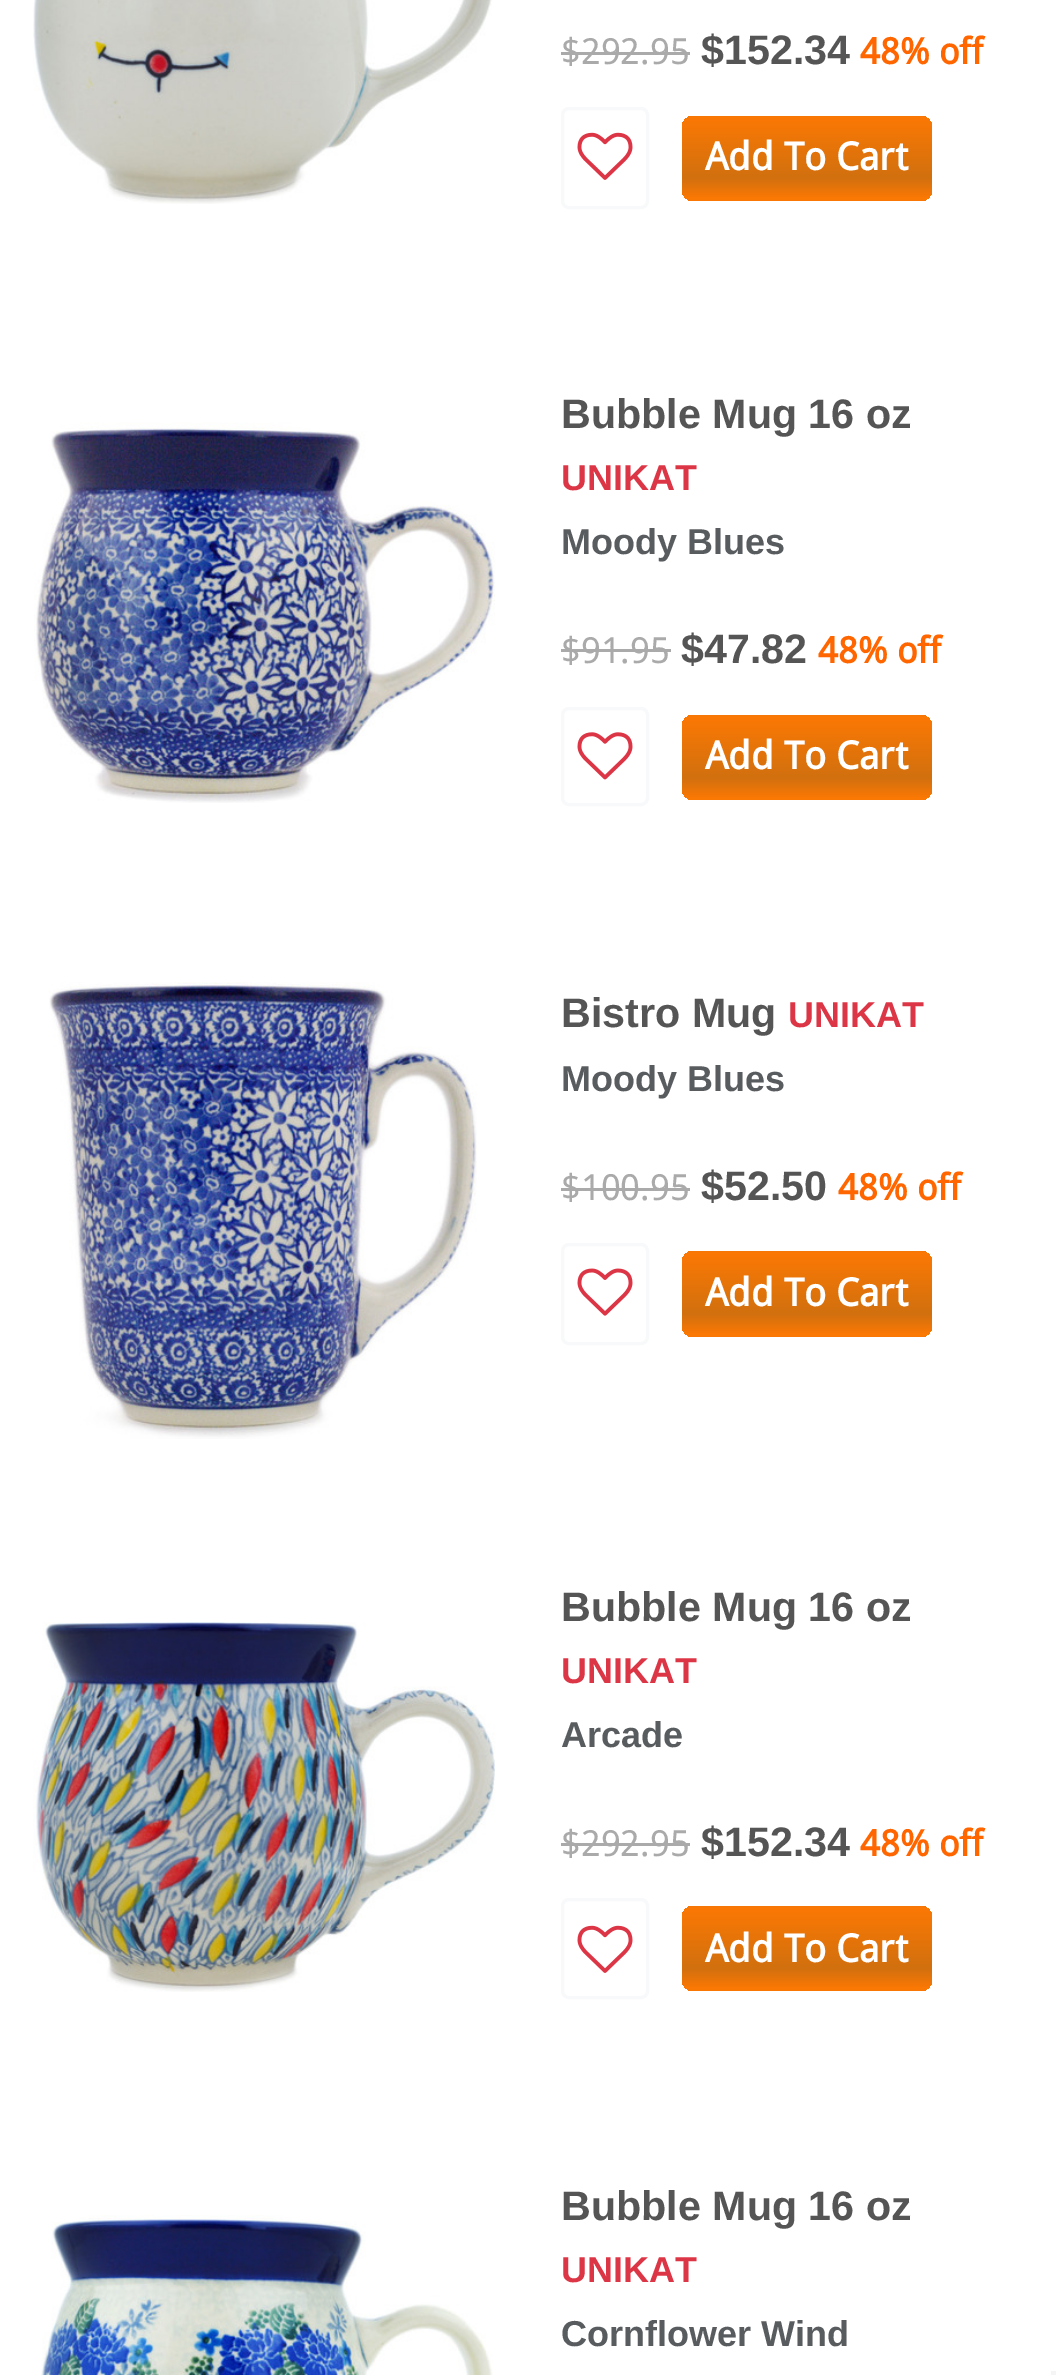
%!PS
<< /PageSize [1056 2375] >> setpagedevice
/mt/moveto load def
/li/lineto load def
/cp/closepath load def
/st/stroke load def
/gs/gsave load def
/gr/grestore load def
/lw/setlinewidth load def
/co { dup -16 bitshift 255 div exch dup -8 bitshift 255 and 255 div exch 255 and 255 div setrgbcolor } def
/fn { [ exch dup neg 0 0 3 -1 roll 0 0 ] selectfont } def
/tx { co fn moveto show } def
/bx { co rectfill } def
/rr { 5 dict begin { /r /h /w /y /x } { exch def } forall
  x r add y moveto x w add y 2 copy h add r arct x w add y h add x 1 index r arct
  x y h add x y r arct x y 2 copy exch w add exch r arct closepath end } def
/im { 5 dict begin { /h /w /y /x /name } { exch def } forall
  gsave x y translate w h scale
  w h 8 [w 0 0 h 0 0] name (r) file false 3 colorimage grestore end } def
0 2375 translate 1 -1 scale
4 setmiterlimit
0 0 1056 2375 16#FFFFFF bx
(media/1.raw) 33 0 459 204 im
561 52 129 3 16#AAAAAA bx
16#F8F9FA co
3 lw
562.5 108.5 85 99 6.5 rr st
(media/2.raw) 577 132 56 48 im
gs
682 116 250 85 11 rr clip newpath
gs 682 116 mt 932 116 li 932 118 li 682 118 li cp clip newpath
<< /ShadingType 2 /ColorSpace /DeviceRGB /Coords [807 38 807 118] /Extend [true true] /Function << /FunctionType 3 /Domain [0 1] /Functions [<< /FunctionType 2 /Domain [0 1] /C0 [.984 .471 .016] /C1 [.82 .439 .059] /N 1 >> << /FunctionType 2 /Domain [0 1] /C0 [.82 .439 .059] /C1 [.984 .471 .016] /N 1 >>] /Bounds [.75] /Encode [0 1 0 1] >> >> shfill gr
gs 682 118 mt 932 118 li 932 198 li 682 198 li cp clip newpath
<< /ShadingType 2 /ColorSpace /DeviceRGB /Coords [807 118 807 198] /Extend [true true] /Function << /FunctionType 3 /Domain [0 1] /Functions [<< /FunctionType 2 /Domain [0 1] /C0 [.984 .471 .016] /C1 [.82 .439 .059] /N 1 >> << /FunctionType 2 /Domain [0 1] /C0 [.82 .439 .059] /C1 [.984 .471 .016] /N 1 >>] /Bounds [.75] /Encode [0 1 0 1] >> >> shfill gr
gs 682 198 mt 932 198 li 932 201 li 682 201 li cp clip newpath
<< /ShadingType 2 /ColorSpace /DeviceRGB /Coords [807 198 807 278] /Extend [true true] /Function << /FunctionType 3 /Domain [0 1] /Functions [<< /FunctionType 2 /Domain [0 1] /C0 [.984 .471 .016] /C1 [.82 .439 .059] /N 1 >> << /FunctionType 2 /Domain [0 1] /C0 [.82 .439 .059] /C1 [.984 .471 .016] /N 1 >>] /Bounds [.75] /Encode [0 1 0 1] >> >> shfill gr
gr
(media/3.raw) 34 422 461 381 im
561 649 110 3 16#AAAAAA bx
16#F8F9FA co
562.5 708.5 85 96 6.5 rr st
(media/4.raw) 577 732 56 48 im
gs
682 715 250 85 11 rr clip newpath
gs 682 715 mt 932 715 li 932 718 li 682 718 li cp clip newpath
<< /ShadingType 2 /ColorSpace /DeviceRGB /Coords [807 638 807 718] /Extend [true true] /Function << /FunctionType 3 /Domain [0 1] /Functions [<< /FunctionType 2 /Domain [0 1] /C0 [.984 .471 .016] /C1 [.82 .439 .059] /N 1 >> << /FunctionType 2 /Domain [0 1] /C0 [.82 .439 .059] /C1 [.984 .471 .016] /N 1 >>] /Bounds [.75] /Encode [0 1 0 1] >> >> shfill gr
gs 682 718 mt 932 718 li 932 798 li 682 798 li cp clip newpath
<< /ShadingType 2 /ColorSpace /DeviceRGB /Coords [807 718 807 798] /Extend [true true] /Function << /FunctionType 3 /Domain [0 1] /Functions [<< /FunctionType 2 /Domain [0 1] /C0 [.984 .471 .016] /C1 [.82 .439 .059] /N 1 >> << /FunctionType 2 /Domain [0 1] /C0 [.82 .439 .059] /C1 [.984 .471 .016] /N 1 >>] /Bounds [.75] /Encode [0 1 0 1] >> >> shfill gr
gs 682 798 mt 932 798 li 932 800 li 682 800 li cp clip newpath
<< /ShadingType 2 /ColorSpace /DeviceRGB /Coords [807 798 807 877] /Extend [true true] /Function << /FunctionType 3 /Domain [0 1] /Functions [<< /FunctionType 2 /Domain [0 1] /C0 [.984 .471 .016] /C1 [.82 .439 .059] /N 1 >> << /FunctionType 2 /Domain [0 1] /C0 [.82 .439 .059] /C1 [.984 .471 .016] /N 1 >>] /Bounds [.75] /Encode [0 1 0 1] >> >> shfill gr
gr
(media/5.raw) 49 982 428 457 im
561 1188 129 3 16#AAAAAA bx
16#F8F9FA co
562.5 1244.5 85 99 6.5 rr st
(media/6.raw) 577 1268 56 48 im
gs
682 1251 250 86 11 rr clip newpath
gs 682 1251 mt 932 1251 li 932 1254 li 682 1254 li cp clip newpath
<< /ShadingType 2 /ColorSpace /DeviceRGB /Coords [807 1174 807 1254] /Extend [true true] /Function << /FunctionType 3 /Domain [0 1] /Functions [<< /FunctionType 2 /Domain [0 1] /C0 [.984 .471 .016] /C1 [.82 .439 .059] /N 1 >> << /FunctionType 2 /Domain [0 1] /C0 [.82 .439 .059] /C1 [.984 .471 .016] /N 1 >>] /Bounds [.75] /Encode [0 1 0 1] >> >> shfill gr
gs 682 1254 mt 932 1254 li 932 1334 li 682 1334 li cp clip newpath
<< /ShadingType 2 /ColorSpace /DeviceRGB /Coords [807 1254 807 1334] /Extend [true true] /Function << /FunctionType 3 /Domain [0 1] /Functions [<< /FunctionType 2 /Domain [0 1] /C0 [.984 .471 .016] /C1 [.82 .439 .059] /N 1 >> << /FunctionType 2 /Domain [0 1] /C0 [.82 .439 .059] /C1 [.984 .471 .016] /N 1 >>] /Bounds [.75] /Encode [0 1 0 1] >> >> shfill gr
gs 682 1334 mt 932 1334 li 932 1337 li 682 1337 li cp clip newpath
<< /ShadingType 2 /ColorSpace /DeviceRGB /Coords [807 1334 807 1414] /Extend [true true] /Function << /FunctionType 3 /Domain [0 1] /Functions [<< /FunctionType 2 /Domain [0 1] /C0 [.984 .471 .016] /C1 [.82 .439 .059] /N 1 >> << /FunctionType 2 /Domain [0 1] /C0 [.82 .439 .059] /C1 [.984 .471 .016] /N 1 >>] /Bounds [.75] /Encode [0 1 0 1] >> >> shfill gr
gr
(media/7.raw) 33 1622 462 370 im
561 1843 129 3 16#AAAAAA bx
16#F8F9FA co
562.5 1899.5 85 98 6.5 rr st
(media/2.raw) 577 1925 56 48 im
gs
682 1906 250 85 11 rr clip newpath
gs 682 1906 mt 932 1906 li 932 1909 li 682 1909 li cp clip newpath
<< /ShadingType 2 /ColorSpace /DeviceRGB /Coords [807 1829 807 1909] /Extend [true true] /Function << /FunctionType 3 /Domain [0 1] /Functions [<< /FunctionType 2 /Domain [0 1] /C0 [.984 .471 .016] /C1 [.82 .439 .059] /N 1 >> << /FunctionType 2 /Domain [0 1] /C0 [.82 .439 .059] /C1 [.984 .471 .016] /N 1 >>] /Bounds [.75] /Encode [0 1 0 1] >> >> shfill gr
gs 682 1909 mt 932 1909 li 932 1988 li 682 1988 li cp clip newpath
<< /ShadingType 2 /ColorSpace /DeviceRGB /Coords [807 1909 807 1988] /Extend [true true] /Function << /FunctionType 3 /Domain [0 1] /Functions [<< /FunctionType 2 /Domain [0 1] /C0 [.984 .471 .016] /C1 [.82 .439 .059] /N 1 >> << /FunctionType 2 /Domain [0 1] /C0 [.82 .439 .059] /C1 [.984 .471 .016] /N 1 >>] /Bounds [.75] /Encode [0 1 0 1] >> >> shfill gr
gs 682 1988 mt 932 1988 li 932 1991 li 682 1991 li cp clip newpath
<< /ShadingType 2 /ColorSpace /DeviceRGB /Coords [807 1988 807 2068] /Extend [true true] /Function << /FunctionType 3 /Domain [0 1] /Functions [<< /FunctionType 2 /Domain [0 1] /C0 [.984 .471 .016] /C1 [.82 .439 .059] /N 1 >> << /FunctionType 2 /Domain [0 1] /C0 [.82 .439 .059] /C1 [.984 .471 .016] /N 1 >>] /Bounds [.75] /Encode [0 1 0 1] >> >> shfill gr
gr
(media/8.raw) 41 2215 452 160 im
1051 2371 5 4 16#F5F5F5 bx
($292.95) 561 64 /DroidSans-Regular 36 16#AAAAAA tx
($152.34) 701 64 /LiberationSans-Bold 41.25 16#555555 tx
(48% off) 860 64 /DroidSans-Bold 36 16#FF6600 tx
(Add To Cart) 705 170 /DroidSans-Bold 38.5 16#FFFFFF tx
(Bubble Mug 16 oz) 561 428 /LiberationSans-Bold 41.25 16#555555 tx
(UNIKAT) 561 490 /LiberationSans-Bold 36 16#DC3545 tx
(Moody Blues) 561 554 /LiberationSans-Bold 36 16#595C5F tx
($91.95) 561 663 /DroidSans-Regular 36 16#AAAAAA tx
($47.82) 681 663 /LiberationSans-Bold 41.25 16#555555 tx
(48% off) 818 663 /DroidSans-Bold 36 16#FF6600 tx
(Add To Cart) 705 769 /DroidSans-Bold 38.5 16#FFFFFF tx
(Bistro Mug) 561 1027 /LiberationSans-Bold 41.25 16#555555 tx
(UNIKAT) 788 1027 /LiberationSans-Bold 36 16#DC3545 tx
(Moody Blues) 561 1091 /LiberationSans-Bold 36 16#595C5F tx
($100.95) 561 1200 /DroidSans-Regular 36 16#AAAAAA tx
($52.50) 701 1200 /LiberationSans-Bold 41.25 16#555555 tx
(48% off) 838 1200 /DroidSans-Bold 36 16#FF6600 tx
(Add To Cart) 705 1306 /DroidSans-Bold 38.5 16#FFFFFF tx
(Bubble Mug 16 oz) 561 1621 /LiberationSans-Bold 41.25 16#555555 tx
(UNIKAT) 561 1683 /LiberationSans-Bold 36 16#DC3545 tx
(Arcade) 561 1747 /LiberationSans-Bold 36 16#595C5F tx
($292.95) 561 1856 /DroidSans-Regular 36 16#AAAAAA tx
($152.34) 701 1856 /LiberationSans-Bold 41.25 16#555555 tx
(48% off) 860 1856 /DroidSans-Bold 36 16#FF6600 tx
(Add To Cart) 705 1962 /DroidSans-Bold 38.5 16#FFFFFF tx
(Bubble Mug 16 oz) 561 2220 /LiberationSans-Bold 41.25 16#555555 tx
(UNIKAT) 561 2282 /LiberationSans-Bold 36 16#DC3545 tx
(Cornflower Wind) 561 2346 /LiberationSans-Bold 36 16#595C5F tx
showpage
